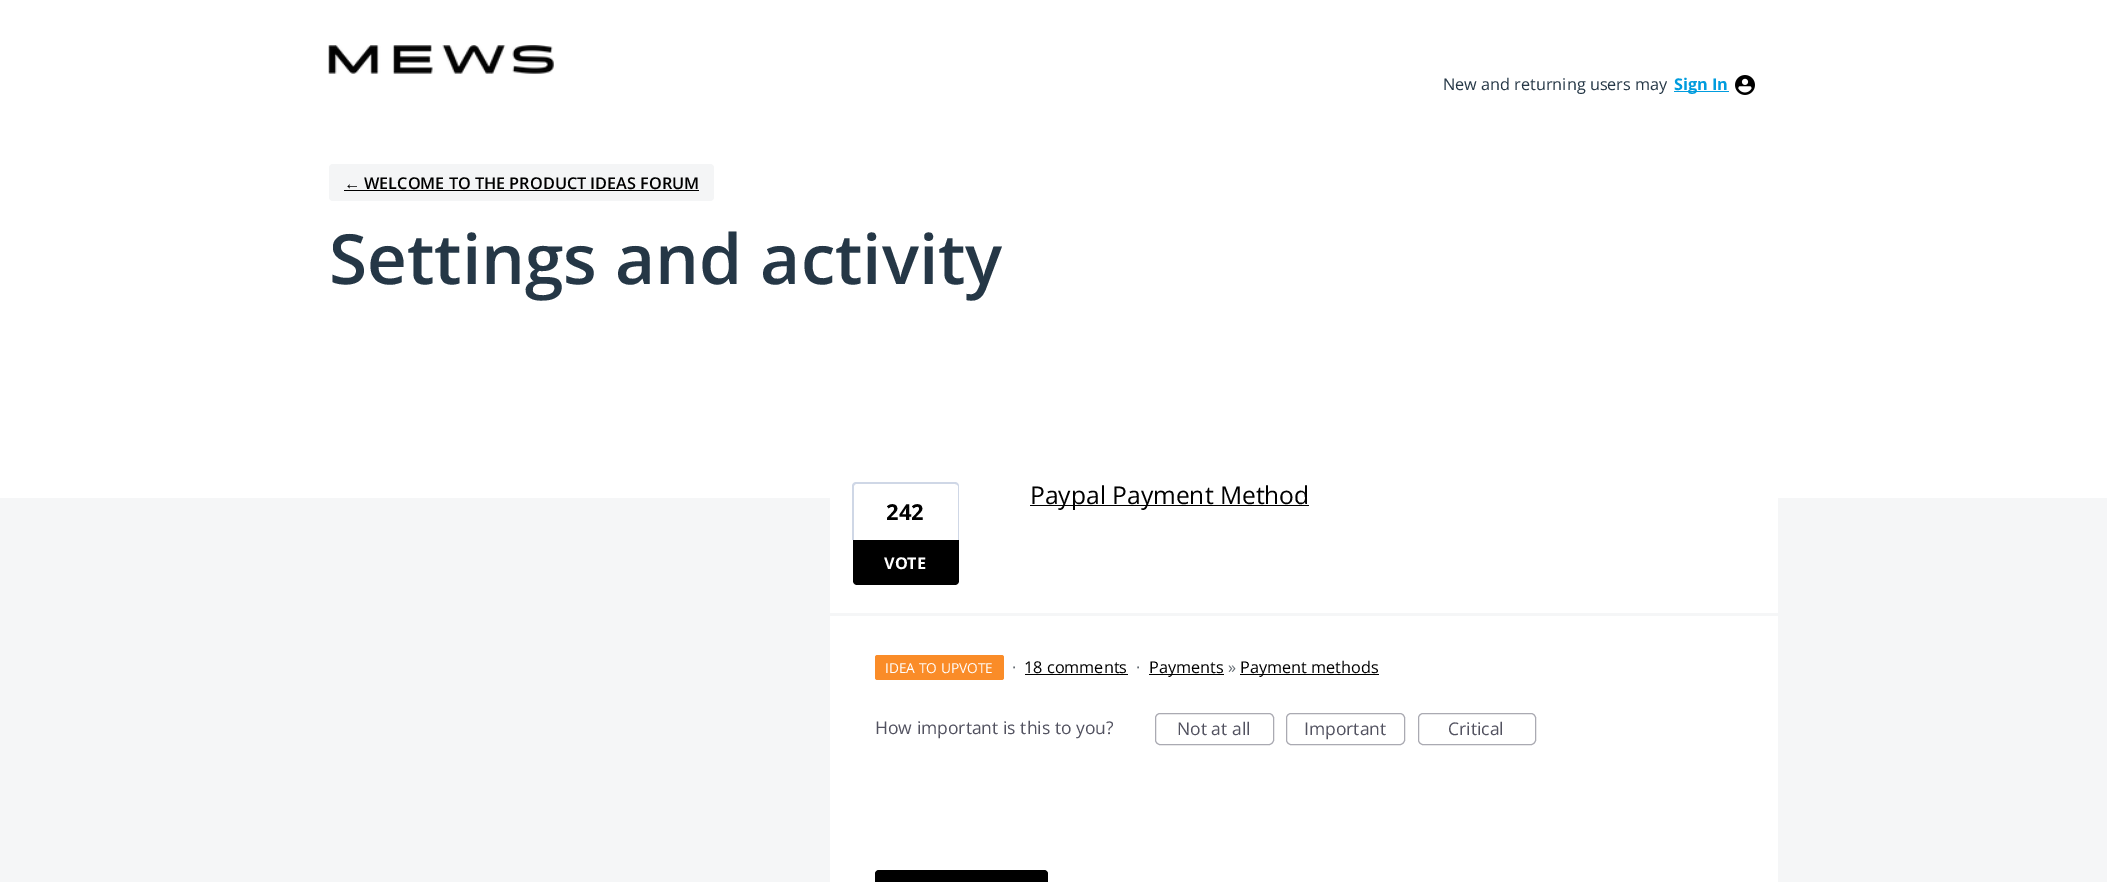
%!PS
<< /PageSize [2107 882] >> setpagedevice
/mt/moveto load def
/li/lineto load def
/ct/curveto load def
/cp/closepath load def
/fl/fill load def
/st/stroke load def
/co { dup -16 bitshift 255 div exch dup -8 bitshift 255 and 255 div exch 255 and 255 div setrgbcolor } def
/fn { [ exch dup neg 0 0 3 -1 roll 0 0 ] selectfont } def
/tx { co fn moveto show } def
/bx { co rectfill } def
/rr { 5 dict begin { /r /h /w /y /x } { exch def } forall
  x r add y moveto x w add y 2 copy h add r arct x w add y h add x 1 index r arct
  x y h add x y r arct x y 2 copy exch w add exch r arct closepath end } def
/im { 5 dict begin { /h /w /y /x /name } { exch def } forall
  gsave x y translate w h scale
  w h 8 [w 0 0 h 0 0] name (r) file false 3 colorimage grestore end } def
0 882 translate 1 -1 scale
4 setmiterlimit
0 0 2107 882 16#FFFFFF bx
(media/1.raw) 328 45 226 29 im
1674 91 55 1 16#009CDE bx
(media/2.raw) 1735 75 20 20 im
16#F4F5F6 co
329 164 385 37 4 rr fl
344 190 355 1 16#000000 bx
0 498 2107 384 16#F5F6F7 bx
830 498 948 384 16#FFFFFF bx
1030 505 279 1 16#000000 bx
16#CFD7E6 co
856 482 mt 955 482 li 957 482 959 484 959 486 ct 959 540 li 852 540 li 852 486 li 852 484 854 482 856 482 ct cp 856 484 mt 955 484 li 956 484 958 485 958 486 ct 958 540 li 854 540 li 854 486 li 854 485 855 484 856 484 ct cp eofill
16#000000 co
853 540 mt 959 540 li 959 581 li 959 583 957 585 955 585 ct 857 585 li 855 585 853 583 853 581 ct cp fl
830 613 948 3 16#F5F6F7 bx
16#FA8C28 co
875 655 129 25 2.5 rr fl
1025 674 103 1 16#000000 bx
1149 674 75 1 16#000000 bx
1240 674 139 1 16#000000 bx
16#AAAAB2 co
1155.5 713.5 118 31 4.5 rr st
1286.5 713.5 118 31 4.5 rr st
1418.5 713.5 117 31 4.5 rr st
16#000000 co
875 870 173 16 4 rr fl
(New and returning users may) 1443 90 /OpenSans-Regular 16.25 16#253746 tx
(Sign In) 1674 90 /OpenSans-Bold 16.25 16#009CDE tx
(←) 344 189 /LiberationSans-Bold 16.25 16#000000 tx
(WELCOME TO THE PRODUCT IDEAS FORUM) 364 189 /OpenSans-SemiBold 16.25 16#000000 tx
(Settings and activity) 329 284 /OpenSans-SemiBold 69.25 16#253746 tx
(Paypal Payment Method) 1030 504 /OpenSans-Regular 24.6 16#000000 tx
(242) 886 520 /OpenSans-Bold 22 16#000000 tx
(VOTE) 884 569 /OpenSans-Bold 16.25 16#FFFFFF tx
(IDEA TO UPVOTE) 885 673 /OpenSans-Regular 13.75 16#FFFFFF tx
(·) 1012 673 /OpenSans-Regular 16.25 16#646B72 tx
(18 comments) 1024 673 /OpenSans-Regular 16.25 16#000000 tx
(·) 1136 673 /OpenSans-Regular 16.25 16#646B72 tx
(Payments) 1149 673 /OpenSans-Regular 16.25 16#000000 tx
(») 1228 673 /OpenSans-Regular 16.25 16#646B72 tx
(Payment methods) 1240 673 /OpenSans-Regular 16.25 16#000000 tx
(How important is this to you?) 875 734 /OpenSans-Regular 17.5 16#525260 tx
(Not at all) 1177 735 /OpenSans-Regular 17.5 16#525260 tx
(Important) 1304 735 /OpenSans-Regular 17.5 16#525260 tx
(Critical) 1448 735 /OpenSans-Regular 17.5 16#525260 tx
showpage
